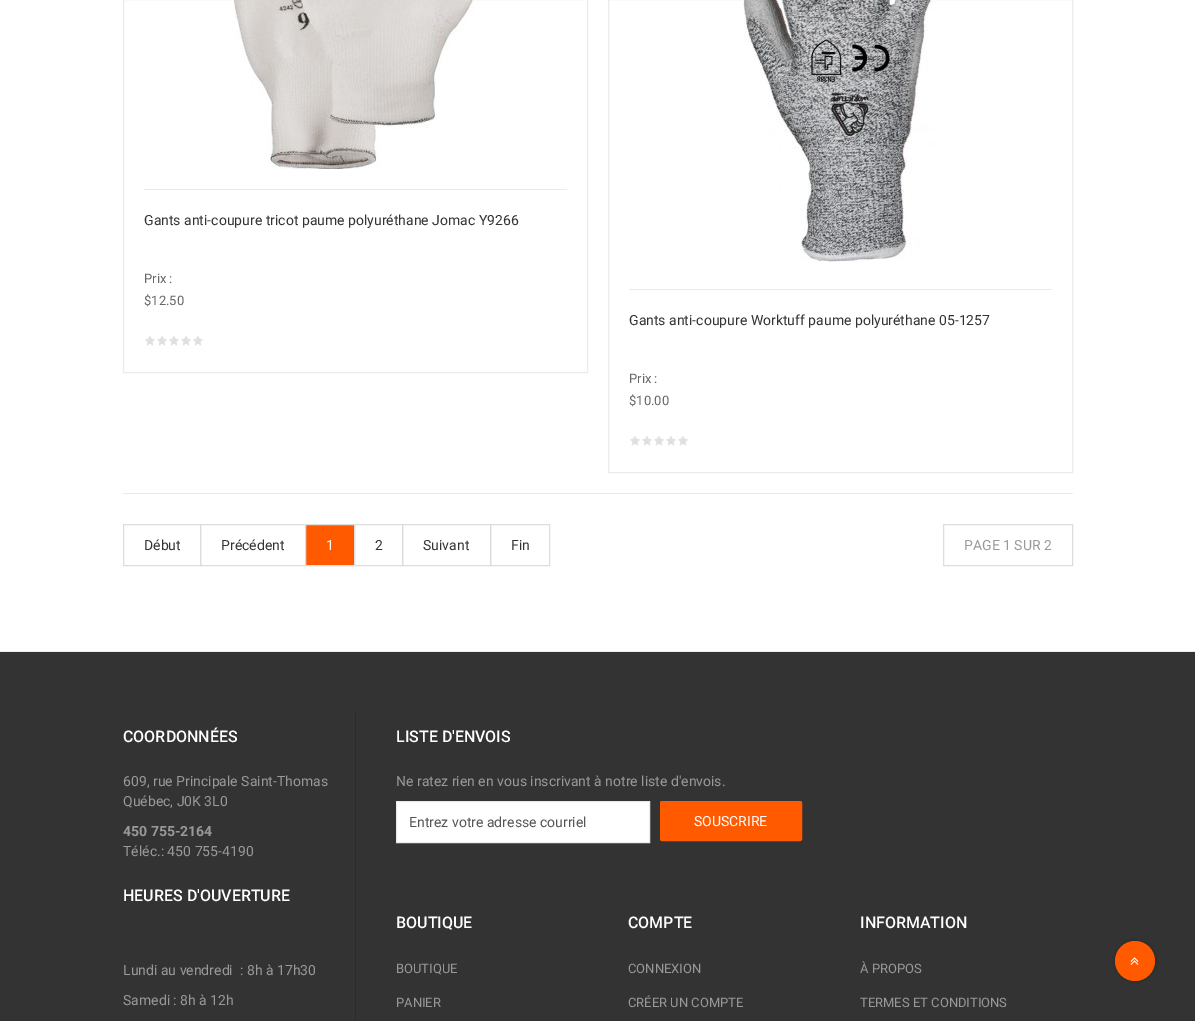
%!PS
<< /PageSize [1195 1021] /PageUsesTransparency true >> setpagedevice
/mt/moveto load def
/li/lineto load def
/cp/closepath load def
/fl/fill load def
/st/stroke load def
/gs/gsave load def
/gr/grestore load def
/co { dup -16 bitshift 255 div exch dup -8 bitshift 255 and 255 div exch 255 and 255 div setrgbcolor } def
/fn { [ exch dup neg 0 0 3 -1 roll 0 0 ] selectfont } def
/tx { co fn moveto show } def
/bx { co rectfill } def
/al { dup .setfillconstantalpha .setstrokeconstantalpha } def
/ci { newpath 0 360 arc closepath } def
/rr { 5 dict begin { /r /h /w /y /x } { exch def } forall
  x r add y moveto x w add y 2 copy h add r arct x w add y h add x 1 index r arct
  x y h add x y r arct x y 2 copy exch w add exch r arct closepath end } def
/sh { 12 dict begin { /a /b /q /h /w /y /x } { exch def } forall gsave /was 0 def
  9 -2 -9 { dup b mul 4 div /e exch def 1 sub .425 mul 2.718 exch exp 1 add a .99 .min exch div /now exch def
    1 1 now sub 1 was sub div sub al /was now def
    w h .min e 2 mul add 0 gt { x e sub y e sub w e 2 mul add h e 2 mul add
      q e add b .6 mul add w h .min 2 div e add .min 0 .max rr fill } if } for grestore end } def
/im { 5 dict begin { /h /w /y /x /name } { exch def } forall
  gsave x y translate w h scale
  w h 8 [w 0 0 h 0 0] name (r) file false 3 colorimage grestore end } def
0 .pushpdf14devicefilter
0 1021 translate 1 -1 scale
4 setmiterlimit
0 0 1195 1021 16#FFFFFF bx
16#EBEBEB co
123.5 -.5 464 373 rectstroke
144 189 423 1 16#EBEBEB bx
(media/1.raw) 233 0 241 169 im
(media/2.raw) 145 336 58 10 im
608.5 -.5 464 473 rectstroke
629 289 423 1 16#EBEBEB bx
(media/3.raw) 743 0 193 262 im
(media/2.raw) 630 436 58 10 im
123 493 950 1 16#EBEBEB bx
16#DDDDDD co
123.5 524.5 77 41 rectstroke
200.5 524.5 105 41 rectstroke
16#FF5A00 co
305.5 524.5 mt 354.5 524.5 li 354.5 565.5 li 305.5 565.5 li cp gs fl gr
16#DDDDDD co
st
354.5 524.5 48 41 rectstroke
402.5 524.5 88 41 rectstroke
490.5 524.5 59 41 rectstroke
943.5 524.5 129 41 rectstroke
0 652 1195 369 16#333333 bx
0 651 1195 1 16#EBEBEB bx
355 712 1 309 16#2B2B2B bx
16#FFFFFF co
396.5 801.5 mt 649.5 801.5 li 649.5 842.5 li 396.5 842.5 li cp gs fl gr
16#EBEBEB co
st
16#FF5A00 co
660.5 801.5 141 39 1.5 rr gs fl gr
st
16#000000 co
1115 941 40 40 20 2 .3 sh
16#FF5A00 co
1135 961 20 ci fl
(media/4.raw) 1130 957 9 8 im
(Gants anti-coupure tricot paume polyuréthane Jomac Y9266) 144 225 /Roboto-Regular 14 16#333333 tx
(Prix :) 144 283 /Roboto-Regular 13 16#666666 tx
($12.50) 144 305 /Roboto-Regular 13 16#666666 tx
(Gants anti-coupure Worktuff paume polyuréthane 05-1257) 629 325 /Roboto-Regular 14 16#333333 tx
(Prix :) 629 383 /Roboto-Regular 13 16#666666 tx
($10.00) 629 405 /Roboto-Regular 13 16#666666 tx
(Début) 144 550 /Roboto-Regular 14 16#333333 tx
(Précédent) 221 550 /Roboto-Regular 14 16#333333 tx
(1) 326 550 /Roboto-Regular 14 16#FFFFFF tx
(2) 375 550 /Roboto-Regular 14 16#333333 tx
(Suivant) 423 550 /Roboto-Regular 14 16#333333 tx
(Fin) 511 550 /Roboto-Regular 14 16#333333 tx
(PAGE 1 SUR 2) 964 550 /Roboto-Regular 14 16#999999 tx
(COORDONNÉES) 123 742 /Roboto-Medium 16 16#FFFFFF tx
(609, rue Principale Saint-Thomas) 123 786 /Roboto-Regular 14 16#999999 tx
(Québec, J0K 3L0) 123 806 /Roboto-Regular 14 16#999999 tx
(450 755-2164) 123 836 /Roboto-Bold 14 16#999999 tx
(Téléc.: 450 755-4190) 123 856 /Roboto-Regular 14 16#999999 tx
(HEURES D'OUVERTURE) 123 901 /Roboto-Medium 16 16#FFFFFF tx
(Lundi au vendredi  : 8h à 17h30) 123 975 /Roboto-Regular 14 16#999999 tx
(Samedi : 8h à 12h) 123 1005 /Roboto-Regular 14 16#999999 tx
(LISTE D'ENVOIS) 396 742 /Roboto-Medium 16 16#FFFFFF tx
(Ne ratez rien en vous inscrivant à notre liste d'envois.) 396 786 /Roboto-Regular 14 16#999999 tx
(Entrez votre adresse courriel) 409 827 /Roboto-Regular 14 16#555555 tx
(SOUSCRIRE) 694 826 /Roboto-Regular 14 16#FFFFFF tx
(BOUTIQUE) 396 928 /Roboto-Medium 16 16#FFFFFF tx
(BOUTIQUE) 396 973 /Roboto-Regular 13 16#999999 tx
(PANIER) 396 1007 /Roboto-Regular 13 16#999999 tx
(COMPTE) 628 928 /Roboto-Medium 16 16#FFFFFF tx
(CONNEXION) 628 973 /Roboto-Regular 13 16#999999 tx
(CRÉER UN COMPTE) 628 1007 /Roboto-Regular 13 16#999999 tx
(INFORMATION) 860 928 /Roboto-Medium 16 16#FFFFFF tx
(À PROPOS) 860 973 /Roboto-Regular 13 16#999999 tx
(TERMES ET CONDITIONS) 860 1007 /Roboto-Regular 13 16#999999 tx
.poppdf14devicefilter showpage
